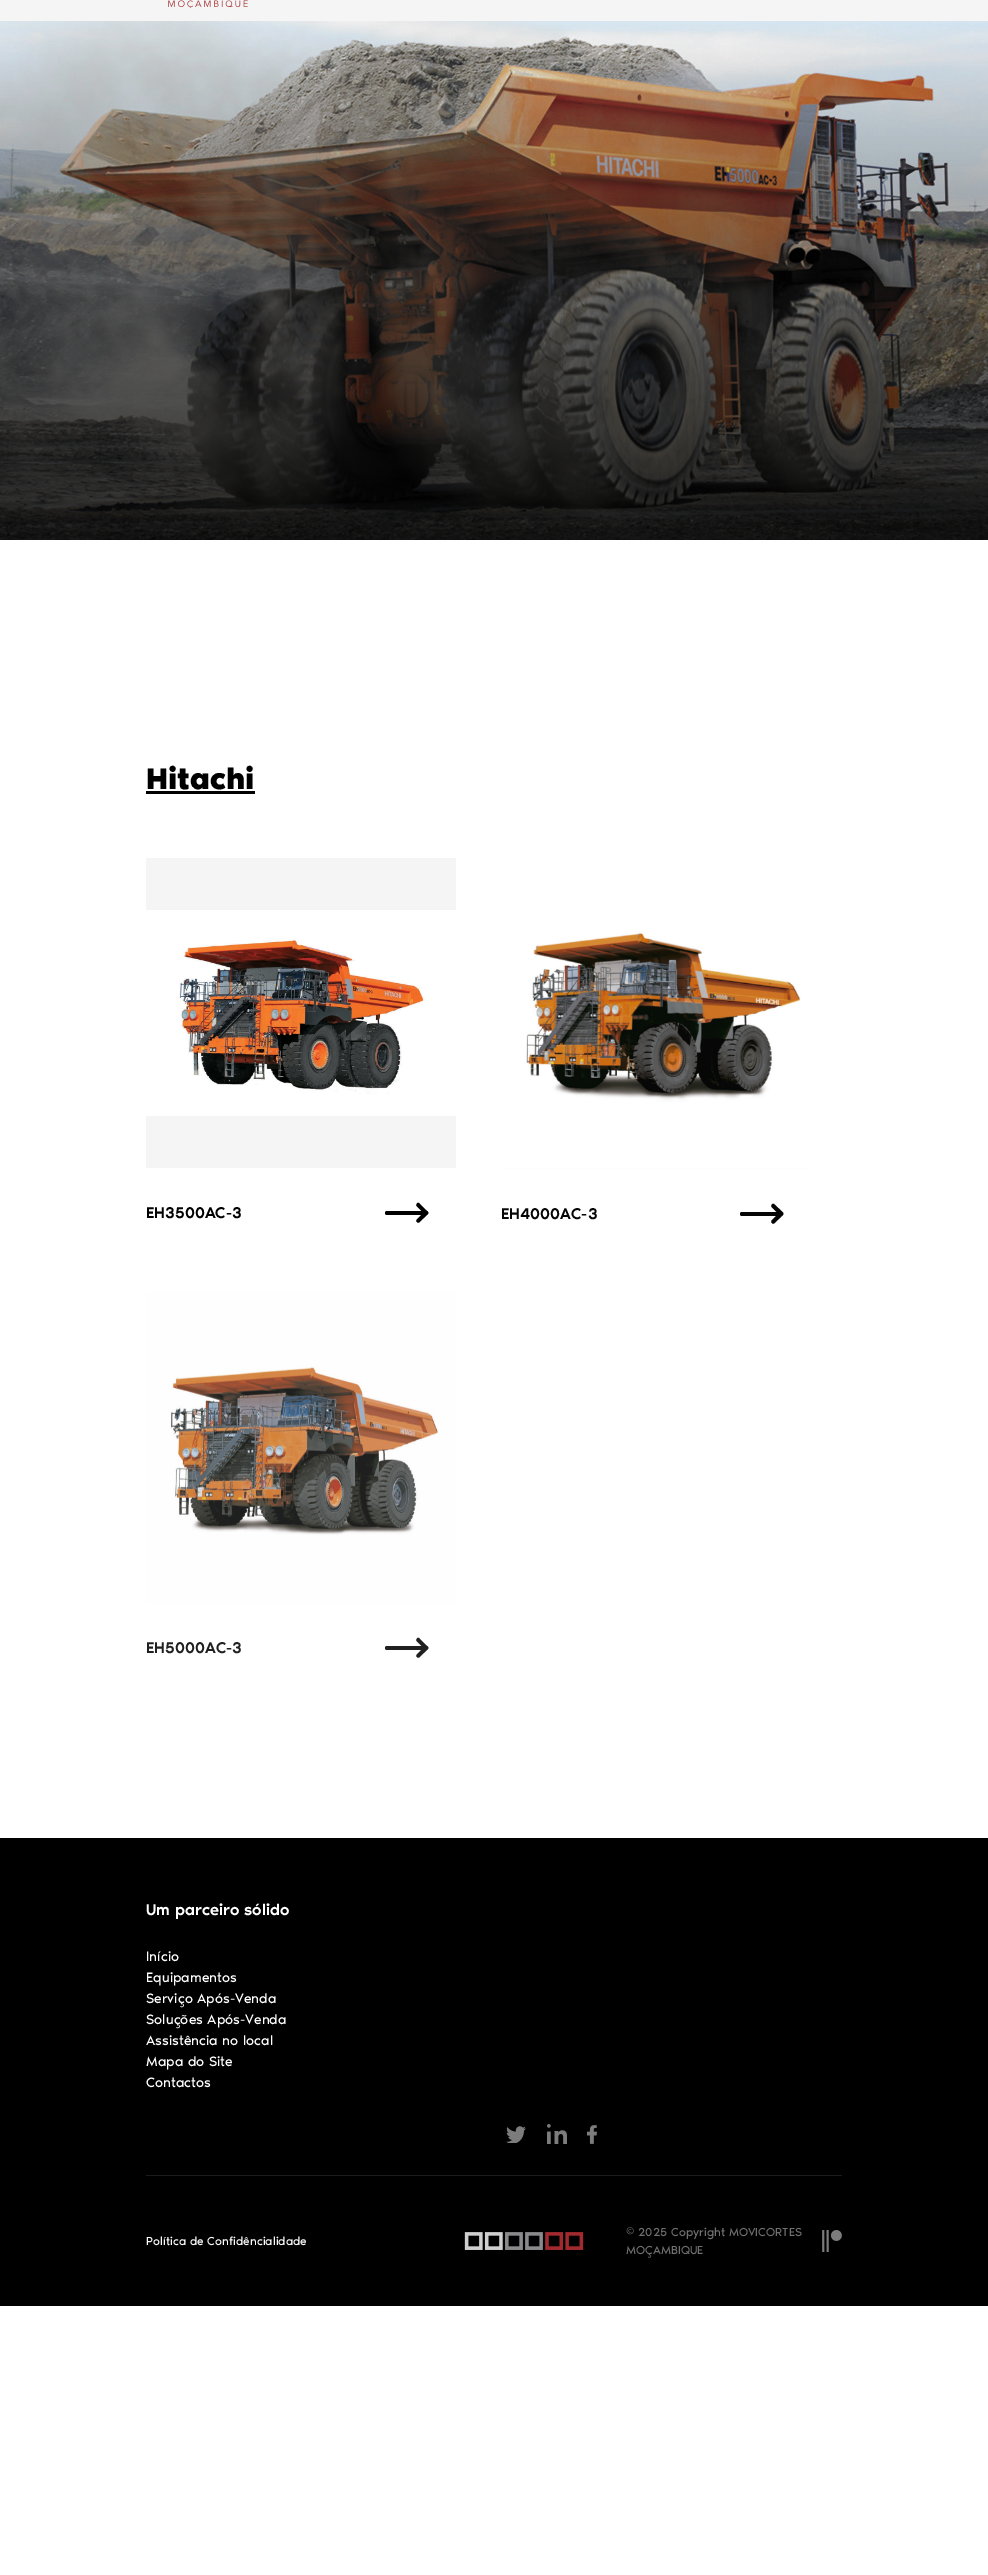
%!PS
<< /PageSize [988 2575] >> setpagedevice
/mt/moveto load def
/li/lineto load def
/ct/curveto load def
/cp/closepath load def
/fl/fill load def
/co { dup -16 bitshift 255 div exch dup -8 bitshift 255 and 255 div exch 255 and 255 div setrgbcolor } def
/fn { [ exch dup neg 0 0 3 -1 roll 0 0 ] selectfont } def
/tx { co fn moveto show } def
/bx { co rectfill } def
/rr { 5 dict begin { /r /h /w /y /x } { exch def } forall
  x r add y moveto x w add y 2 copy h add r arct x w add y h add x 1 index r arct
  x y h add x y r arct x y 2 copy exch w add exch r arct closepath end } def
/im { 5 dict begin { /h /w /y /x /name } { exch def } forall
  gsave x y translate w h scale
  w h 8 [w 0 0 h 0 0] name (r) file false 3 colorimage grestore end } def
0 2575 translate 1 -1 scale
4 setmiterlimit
0 0 988 2575 16#FFFFFF bx
0 0 988 21 16#F5F5F5 bx
(media/1.raw) 168 0 80 8 im
(media/2.raw) 0 21 988 519 im
146 791 109 3 16#000000 bx
146 858 310 310 16#F5F5F5 bx
(media/3.raw) 146 910 310 206 im
16#000000 co
385 1211 40 4 2 rr fl
419.5 1203.5 mt 427.5 1211.5 li 428.5 1212 428.5 1213.5 427.5 1214 ct 426.5 1215 425.5 1215 424.5 1214 ct 417 1206.5 li 416 1205.5 416 1204.5 417 1203.5 ct 417.5 1202.5 419 1202.5 419.5 1203.5 ct cp fl
417 1219.5 mt 424.5 1211.5 li 425.5 1210.5 426.5 1210.5 427.5 1211.5 ct 428.5 1212.5 428.5 1213.5 427.5 1214.5 ct 419.5 1222 li 419 1223 417.5 1223 417 1222 ct 416 1221.5 416 1220 417 1219.5 ct cp fl
(media/4.raw) 501 859 310 310 im
16#060606 co
740 1212 40 4 2 rr fl
774.5 1204.5 mt 782.5 1212 li 783.5 1213 783.5 1214.5 782.5 1215 ct 781.5 1216 780.5 1216 779.5 1215 ct 772 1207.5 li 771 1206.5 771 1205 772 1204.5 ct 772.5 1203.5 774 1203.5 774.5 1204.5 ct cp fl
772 1220 mt 779.5 1212.5 li 780.5 1211.5 781.5 1211.5 782.5 1212.5 ct 783.5 1213 783.5 1214.5 782.5 1215.5 ct 774.5 1223 li 774 1224 772.5 1224 772 1223 ct 771 1222.5 771 1221 772 1220 ct cp fl
(media/5.raw) 146 1293 310 310 im
16#202020 co
385 1646 40 4 2 rr fl
419.5 1638.5 mt 427.5 1646.5 li 428.5 1647 428.5 1648.5 427.5 1649 ct 426.5 1650 425.5 1650 424.5 1649 ct 417 1641.5 li 416 1640.5 416 1639.5 417 1638.5 ct 417.5 1637.5 419 1637.5 419.5 1638.5 ct cp fl
417 1654.5 mt 424.5 1646.5 li 425.5 1645.5 426.5 1645.5 427.5 1646.5 ct 428.5 1647.5 428.5 1648.5 427.5 1649.5 ct 419.5 1657 li 419 1658 417.5 1658 417 1657 ct 416 1656.5 416 1655 417 1654.5 ct cp fl
0 1838 988 468 16#000000 bx
(media/6.raw) 506 2126 20 17 im
(media/7.raw) 547 2124 20 20 im
(media/8.raw) 587 2125 10 19 im
146 2175 696 1 16#1C1C1C bx
(media/9.raw) 464 2232 120 18 im
(media/10.raw) 822 2230 20 22 im
(Hitachi) 146 789 /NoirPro-Bold 30.5 16#000000 tx
(EH3500AC-3) 146 1218 /NoirPro-Medium 16 16#000000 tx
(EH4000AC-3) 501 1219 /NoirPro-Medium 16 16#060606 tx
(EH5000AC-3) 146 1653 /NoirPro-Medium 16 16#202020 tx
(Um parceiro sólido) 146 1915 /NoirPro-Medium 16 16#FFFFFF tx
(Início) 146 1961 /NoirPro-Regular 14 16#FFFFFF tx
(Equipamentos) 146 1982 /NoirPro-Regular 14 16#FFFFFF tx
(Serviço Após-Venda) 146 2003 /NoirPro-Regular 14 16#FFFFFF tx
(Soluções Após-Venda) 146 2024 /NoirPro-Regular 14 16#FFFFFF tx
(Assistência no local) 146 2045 /NoirPro-Regular 14 16#FFFFFF tx
(Mapa do Site) 146 2066 /NoirPro-Regular 14 16#FFFFFF tx
(Contactos) 146 2087 /NoirPro-Regular 14 16#FFFFFF tx
(Política de Confidêncialidade) 146 2245 /NoirPro-Regular 12 16#FFFFFF tx
(© 2025 Copyright MOVICORTES) 626 2236 /NoirPro-Regular 12 16#707070 tx
(MOÇAMBIQUE) 626 2254 /NoirPro-Regular 12 16#707070 tx
showpage
